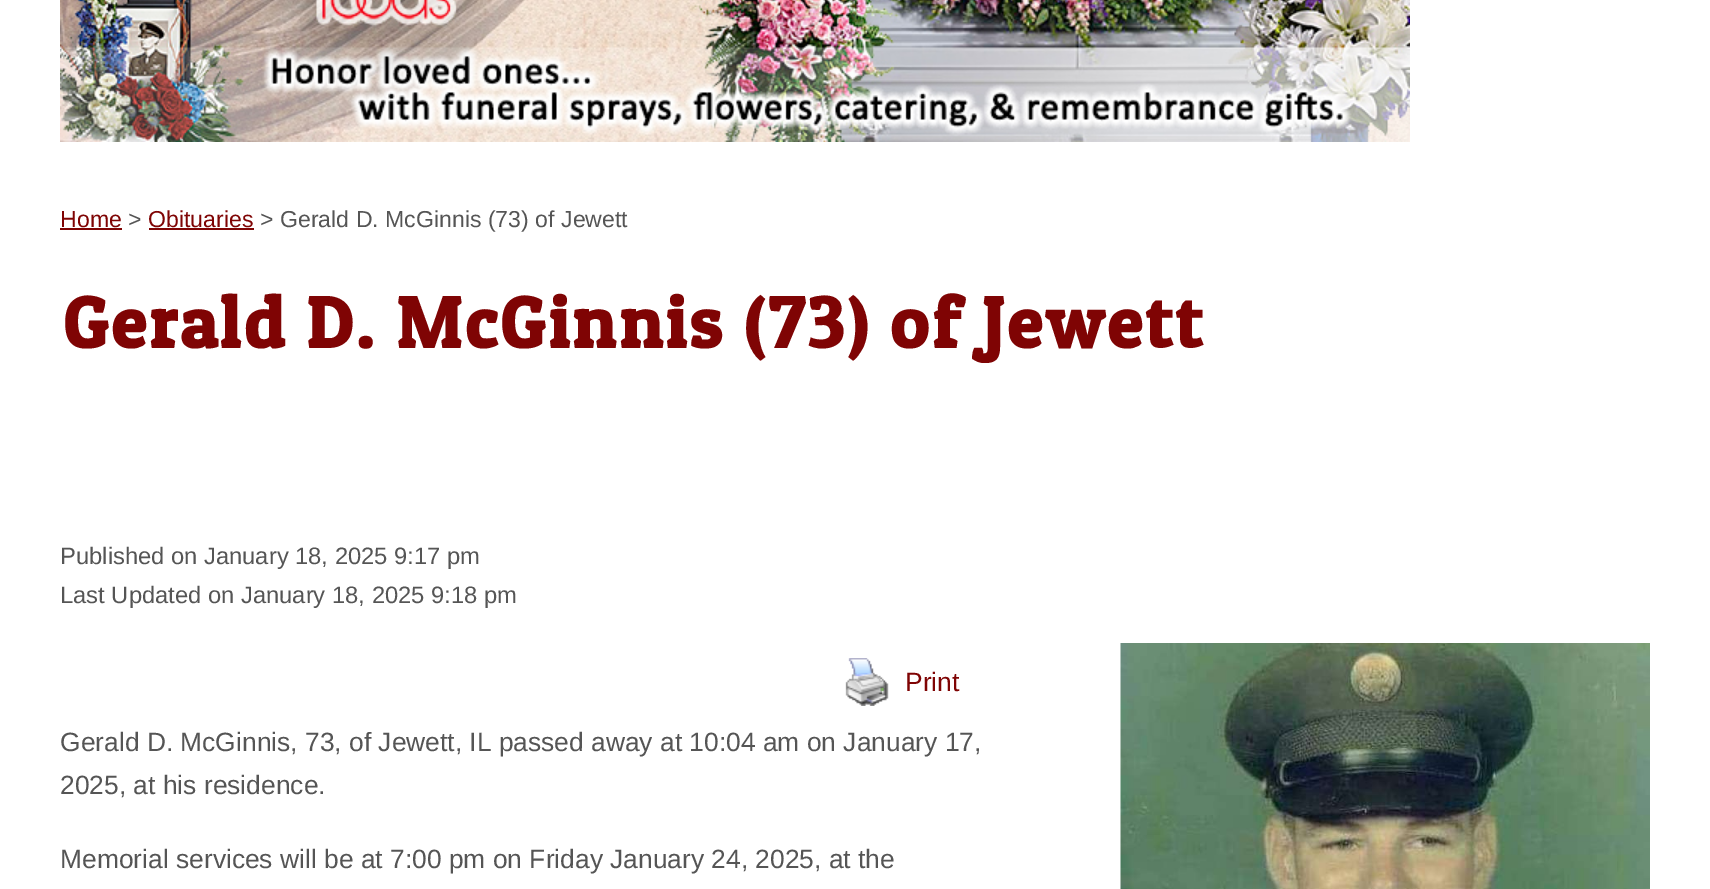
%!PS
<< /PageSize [1710 889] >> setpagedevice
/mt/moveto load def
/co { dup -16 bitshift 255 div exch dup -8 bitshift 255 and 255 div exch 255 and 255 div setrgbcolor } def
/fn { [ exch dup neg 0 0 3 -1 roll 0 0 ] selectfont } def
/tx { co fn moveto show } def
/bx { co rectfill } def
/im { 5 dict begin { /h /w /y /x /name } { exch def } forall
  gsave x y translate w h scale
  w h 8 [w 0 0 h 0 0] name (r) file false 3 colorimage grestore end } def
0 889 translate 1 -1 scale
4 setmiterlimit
0 0 1710 889 16#FFFFFF bx
(media/1.raw) 60 0 1350 142 im
60 228 62 2 16#7F0404 bx
149 228 105 2 16#7F0404 bx
(media/2.raw) 845 658 44 48 im
(media/3.raw) 1120 643 530 246 im
(Home) 60 227 /LiberationSans-Regular 23.1 16#7F0404 tx
(>) 128 227 /LiberationSans-Regular 23.1 16#555555 tx
(Obituaries) 148 227 /LiberationSans-Regular 23.1 16#7F0404 tx
(> Gerald D. McGinnis \(73\) of Jewett) 260 227 /LiberationSans-Regular 23.1 16#555555 tx
/PatuaOne-Bold 72.6 fn
16#7F0404 co
63 348 mt 3 0 (Gerald D. McGinnis \(73\) of Jewett) ashow
(Published on January 18, 2025 9:17 pm) 60 564 /LiberationSans-Regular 23.75 16#555555 tx
(Last Updated on January 18, 2025 9:18 pm) 60 603 /LiberationSans-Regular 23.75 16#555555 tx
(Print) 905 691 /LiberationSans-Regular 26.4 16#7F0404 tx
(Gerald D. McGinnis, 73, of Jewett, IL passed away at 10:04 am on January 17,) 60 751 /LiberationSans-Regular 26.4 16#555555 tx
(2025, at his residence.) 60 794 /LiberationSans-Regular 26.4 16#555555 tx
(Memorial services will be at 7:00 pm on Friday January 24, 2025, at the) 60 868 /LiberationSans-Regular 26.4 16#555555 tx
showpage
